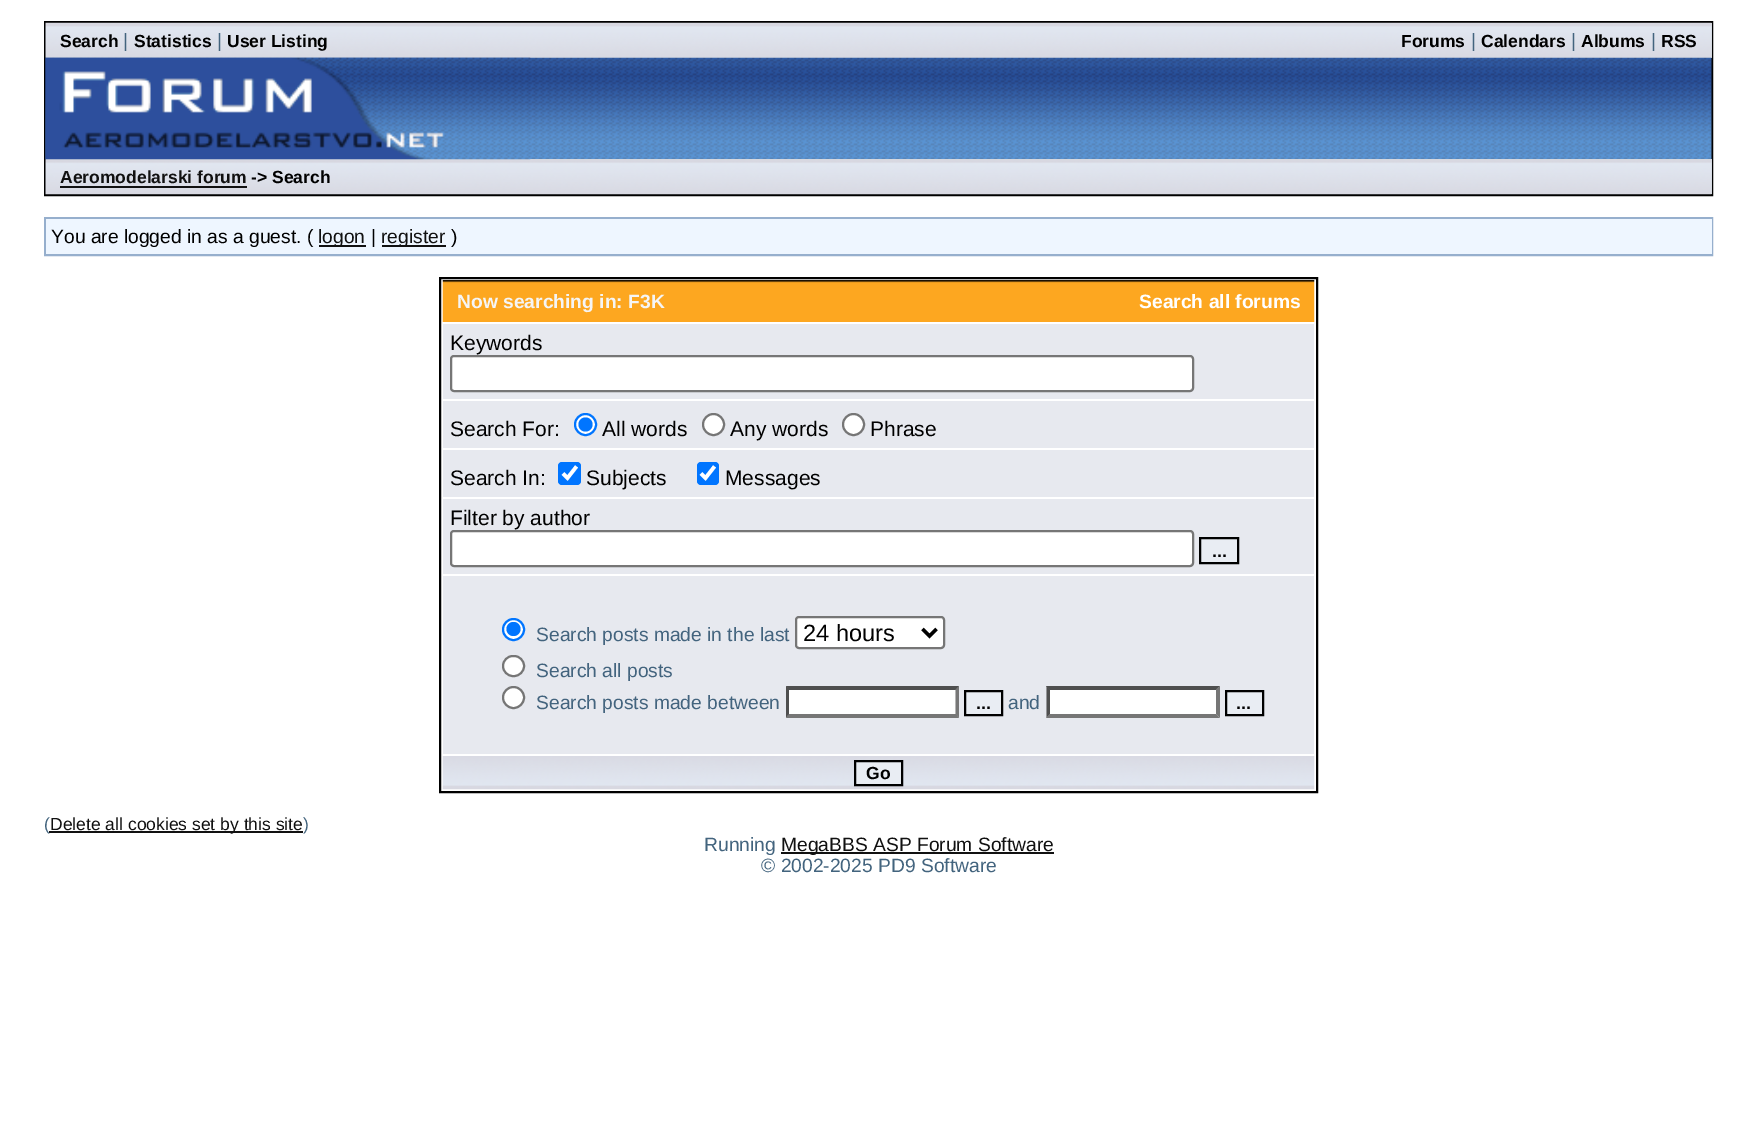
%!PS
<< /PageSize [1757 1133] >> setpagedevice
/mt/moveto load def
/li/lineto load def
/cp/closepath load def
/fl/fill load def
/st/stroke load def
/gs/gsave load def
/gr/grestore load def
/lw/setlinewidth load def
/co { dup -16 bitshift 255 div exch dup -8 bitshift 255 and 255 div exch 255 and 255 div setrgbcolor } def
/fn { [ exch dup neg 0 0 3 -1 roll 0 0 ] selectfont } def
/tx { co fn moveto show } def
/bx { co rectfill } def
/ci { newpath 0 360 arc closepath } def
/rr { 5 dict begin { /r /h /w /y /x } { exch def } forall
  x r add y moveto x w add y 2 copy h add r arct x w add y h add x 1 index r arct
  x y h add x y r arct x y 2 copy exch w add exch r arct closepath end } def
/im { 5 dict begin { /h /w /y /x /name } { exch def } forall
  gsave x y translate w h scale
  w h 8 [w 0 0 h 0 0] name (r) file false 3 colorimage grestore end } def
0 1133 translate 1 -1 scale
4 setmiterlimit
0 0 1757 1133 16#FFFFFF bx
16#000000 co
2 lw
45 22 1667 173 rectstroke
46 23 1666 35 16#D0D7DD bx
(media/1.raw) 45 22 1667 36 im
(media/2.raw) 45 57 1667 103 im
(media/4.raw) 45 159 1523 36 im
(media/3.raw) 45 57 486 103 im
60 186 187 2 16#111111 bx
1568 159 144 35 16#D0D7DD bx
(media/5.raw) 1568 159 144 36 im
16#96AFCD co
45 218 1667 37 rectstroke
46 219 1666 35 16#EEF6FF bx
319 245 47 2 16#111111 bx
382 245 64 2 16#111111 bx
16#000000 co
440 278 877 514 rectstroke
(media/6.raw) 442 280 873 42 im
443 324 871 75 16#E7E9EF bx
16#FFFFFF co
451 356 742 35 3 rr gs fl gr
16#767676 co
st
443 401 871 47 16#E7E9EF bx
16#FFFFFF co
585.5 424.5 10.5 ci gs fl gr
16#0075FF co
st
585.5 424.5 7 ci fl
16#FFFFFF co
713.5 424.5 10.5 ci gs fl gr
16#767676 co
st
16#FFFFFF co
853.5 424.5 10.5 ci gs fl gr
16#767676 co
st
443 450 871 47 16#E7E9EF bx
16#0075FF co
558 462 23 23 4 rr fl
16#FFFFFF co
3.6 lw
563 473.5 mt 567.5 478 li 576.5 466.5 li st
16#0075FF co
697 462 22 23 4 rr fl
16#FFFFFF co
701 473.5 mt 705.5 478 li 714.5 466.5 li st
443 499 871 75 16#E7E9EF bx
16#FFFFFF co
451 531 742 35 3 rr gs fl gr
16#767676 co
2 lw
st
16#E9EDF3 co
1200 538 mt 1238 538 li 1238 563 li 1200 563 li cp gs fl gr
16#000000 co
st
443 576 871 178 16#E7E9EF bx
16#FFFFFF co
513.5 629.5 10.5 ci gs fl gr
16#0075FF co
st
513.5 629 7 ci fl
16#FFFFFF co
796 617 148 31 3 rr gs fl gr
16#767676 co
st
16#000000 co
3.5 lw
922.5 629 mt 929.5 636 li 936.5 629 li st
16#FFFFFF co
503 656 21 20 10 rr gs fl gr
16#767676 co
2 lw
st
16#FFFFFF co
513.5 697.5 10.5 ci gs fl gr
16#767676 co
st
786 686 173 32 16#FFFFFF bx
16#4F4F4F co
786 686 mt 959 686 li 956 690 li 789 690 li cp fl
16#767676 co
959 686 mt 959 717.5 li 955.5 714 li 955.5 689.5 li cp fl
959 718 mt 786 718 li 789 714 li 956 714 li cp fl
16#4F4F4F co
786 717.5 mt 786 686 li 789 689.5 li 789 714 li cp fl
16#E9EDF3 co
965 691 mt 1002 691 li 1002 715 li 965 715 li cp gs fl gr
16#000000 co
st
1047 686 173 32 16#FFFFFF bx
16#4F4F4F co
1046 686 mt 1220 686 li 1216 690 li 1050 690 li cp fl
16#767676 co
1220 686 mt 1220 717.5 li 1216 714 li 1216 689.5 li cp fl
1220 718 mt 1046 718 li 1050 714 li 1216 714 li cp fl
16#4F4F4F co
1046.5 717.5 mt 1046.5 686 li 1050 689.5 li 1050 714 li cp fl
16#E9EDF3 co
1226 691 mt 1263 691 li 1263 715 li 1226 715 li cp gs fl gr
16#000000 co
st
(media/7.raw) 442 756 873 34 im
16#E9EDF3 co
855 761 mt 902 761 li 902 785 li 855 785 li cp gs fl gr
16#000000 co
st
781 852 273 2 16#111111 bx
(Search) 60 47 /LiberationSans-Bold 17.5 16#000000 tx
(|) 123 47 /LiberationSans-Regular 19.25 16#43647E tx
(Statistics) 134 47 /LiberationSans-Bold 17.5 16#000000 tx
(|) 217 47 /LiberationSans-Regular 19.25 16#43647E tx
(User Listing) 227 47 /LiberationSans-Bold 17.5 16#000000 tx
(Forums) 1401 47 /LiberationSans-Bold 17.5 16#000000 tx
(|) 1471 47 /LiberationSans-Regular 19.25 16#43647E tx
(Calendars) 1481 47 /LiberationSans-Bold 17.5 16#000000 tx
(|) 1571 47 /LiberationSans-Regular 19.25 16#43647E tx
(Albums) 1581 47 /LiberationSans-Bold 17.5 16#000000 tx
(|) 1651 47 /LiberationSans-Regular 19.25 16#43647E tx
(RSS) 1661 47 /LiberationSans-Bold 17.5 16#000000 tx
(Aeromodelarski forum) 60 183 /LiberationSans-Bold 17.5 16#111111 tx
(-> Search) 251 183 /LiberationSans-Bold 17.5 16#000000 tx
(You are logged in as a guest. \() 51 243 /LiberationSans-Regular 19.25 16#000000 tx
(logon) 318 243 /LiberationSans-Regular 19.25 16#111111 tx
(|) 371 243 /LiberationSans-Regular 19.25 16#000000 tx
(register) 381 243 /LiberationSans-Regular 19.25 16#111111 tx
(\)) 451 243 /LiberationSans-Regular 19.25 16#000000 tx
(Now searching in: F3K) 457 308 /LiberationSans-Bold 19.25 16#F5F5F5 tx
(Search all forums) 1139 308 /LiberationSans-Bold 19.25 16#FFFFFF tx
(Keywords) 450 350 /LiberationSans-Regular 21 16#000000 tx
(Search For:) 450 436 /LiberationSans-Regular 21 16#000000 tx
(All words) 602 436 /LiberationSans-Regular 21 16#000000 tx
(Any words) 730 436 /LiberationSans-Regular 21 16#000000 tx
(Phrase) 870 436 /LiberationSans-Regular 21 16#000000 tx
(Search In:) 450 485 /LiberationSans-Regular 21 16#000000 tx
(Subjects) 586 485 /LiberationSans-Regular 21 16#000000 tx
(Messages) 725 485 /LiberationSans-Regular 21 16#000000 tx
(Filter by author) 450 525 /LiberationSans-Regular 21 16#000000 tx
(...) 1212 557 /LiberationSans-Bold 17.5 16#000000 tx
(Search posts made in the last) 536 641 /LiberationSans-Regular 19.25 16#43647E tx
(24 hours) 803 641 /LiberationSans-Regular 23.5 16#000000 tx
(Search all posts) 536 677 /LiberationSans-Regular 19.25 16#43647E tx
(Search posts made between) 536 709 /LiberationSans-Regular 19.25 16#43647E tx
(...) 976 709 /LiberationSans-Bold 17.5 16#000000 tx
(and) 1008 709 /LiberationSans-Regular 19.25 16#43647E tx
(...) 1236 709 /LiberationSans-Bold 17.5 16#000000 tx
(Go) 866 779 /LiberationSans-Bold 17.5 16#000000 tx
(\() 44 830 /LiberationSans-Regular 17.5 16#43647E tx
49 831 254 2 16#111111 bx
(Delete all cookies set by this site) 50 830 /LiberationSans-Regular 17.5 16#111111 tx
(\)) 303 830 /LiberationSans-Regular 17.5 16#43647E tx
(Running) 704 851 /LiberationSans-Regular 19.25 16#43647E tx
(MegaBBS ASP Forum Software) 781 851 /LiberationSans-Regular 19.25 16#111111 tx
(© 2002-2025 PD9 Software) 761 872 /LiberationSans-Regular 19.25 16#43647E tx
showpage
